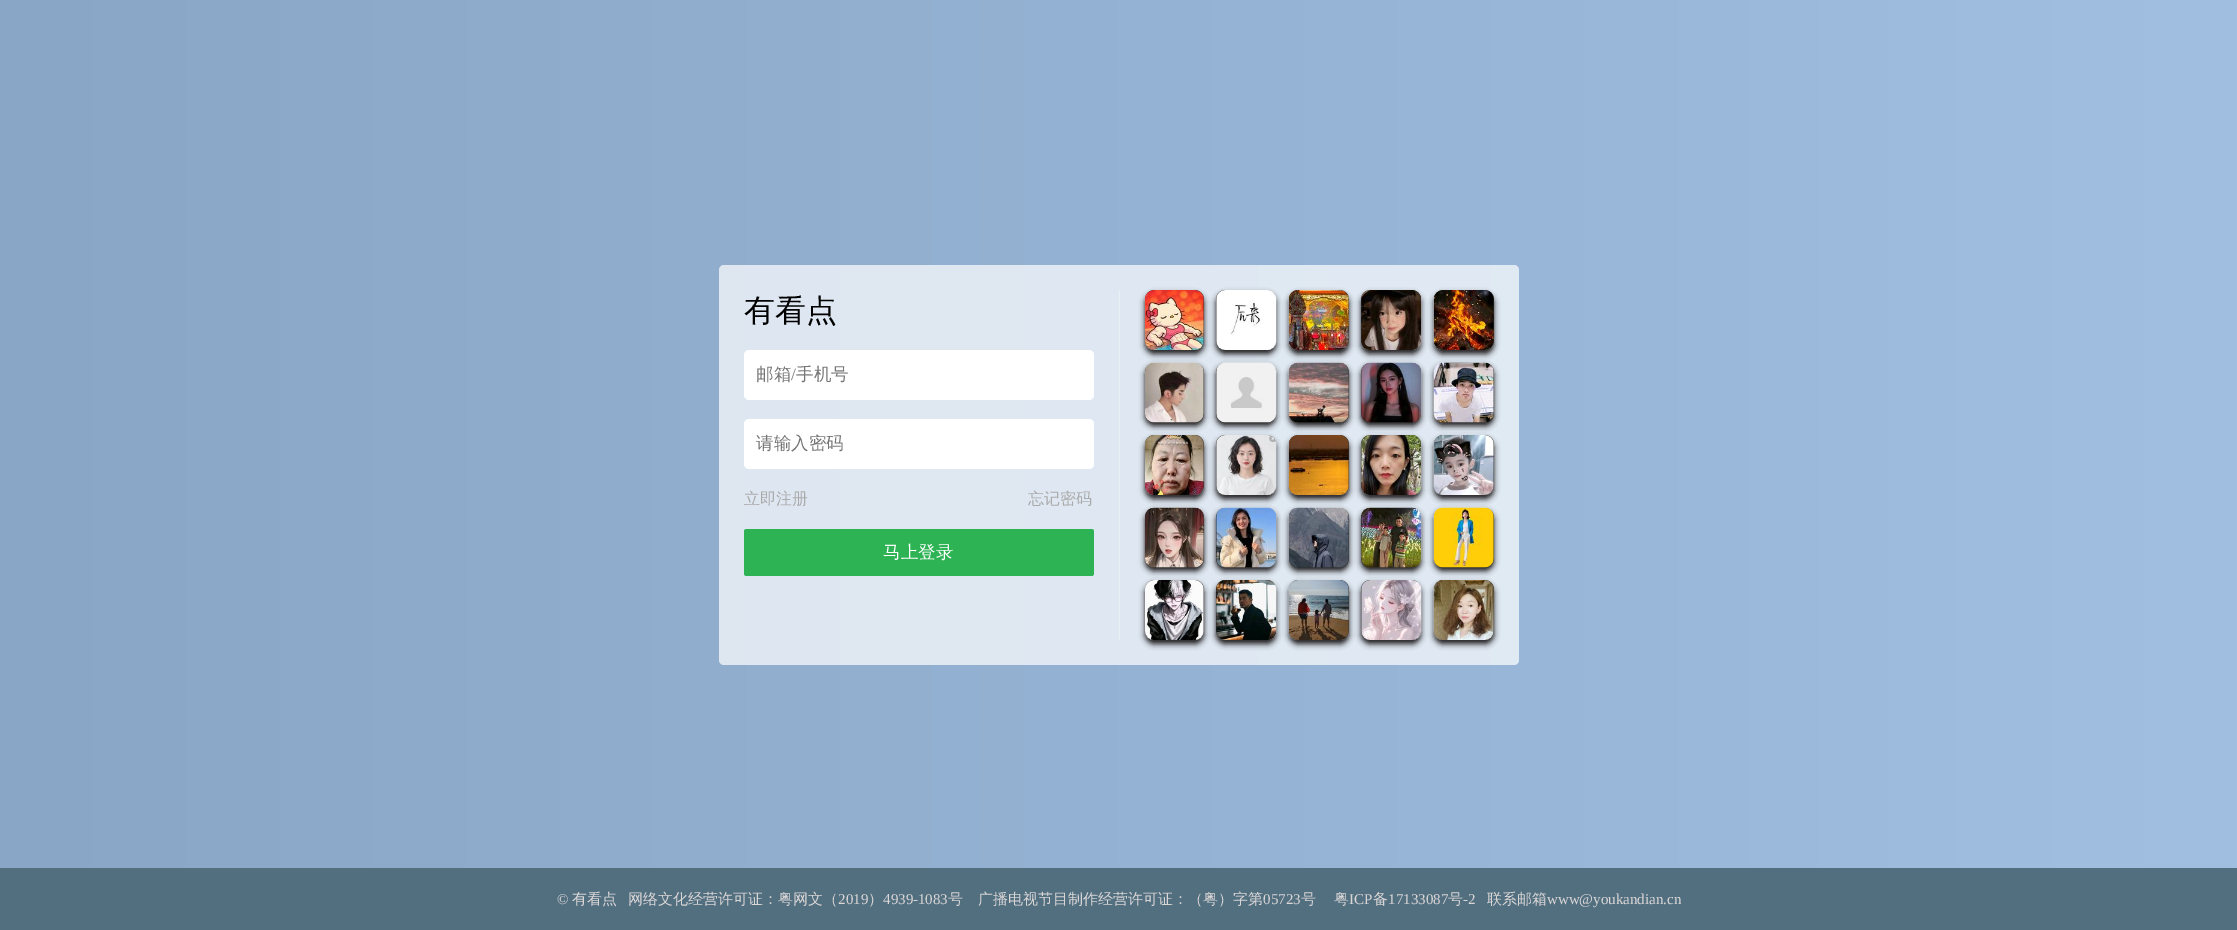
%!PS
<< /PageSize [2237 930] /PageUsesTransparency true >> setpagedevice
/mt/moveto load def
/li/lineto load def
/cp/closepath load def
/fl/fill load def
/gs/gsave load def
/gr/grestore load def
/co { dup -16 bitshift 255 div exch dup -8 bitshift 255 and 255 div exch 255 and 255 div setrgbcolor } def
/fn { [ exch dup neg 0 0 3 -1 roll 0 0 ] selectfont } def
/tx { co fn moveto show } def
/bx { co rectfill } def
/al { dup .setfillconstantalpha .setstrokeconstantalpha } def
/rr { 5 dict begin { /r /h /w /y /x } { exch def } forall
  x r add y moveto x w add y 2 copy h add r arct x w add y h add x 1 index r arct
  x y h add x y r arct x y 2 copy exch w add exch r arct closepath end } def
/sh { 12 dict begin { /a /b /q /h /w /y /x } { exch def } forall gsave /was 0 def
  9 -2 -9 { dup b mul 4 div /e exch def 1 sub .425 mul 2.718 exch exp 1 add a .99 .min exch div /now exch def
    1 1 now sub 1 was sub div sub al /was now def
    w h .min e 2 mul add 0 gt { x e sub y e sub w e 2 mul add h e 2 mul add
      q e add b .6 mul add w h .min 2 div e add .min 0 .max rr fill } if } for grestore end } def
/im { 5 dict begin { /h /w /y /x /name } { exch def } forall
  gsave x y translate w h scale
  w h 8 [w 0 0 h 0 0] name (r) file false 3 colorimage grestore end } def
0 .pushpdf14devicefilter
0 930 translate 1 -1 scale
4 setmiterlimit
0 0 2237 930 16#FFFFFF bx
gs 0 0 mt 2237 0 li 2237 868 li 0 868 li cp clip newpath
<< /ShadingType 2 /ColorSpace /DeviceRGB /Coords [0 465 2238 465] /Extend [true true] /Function << /FunctionType 2 /Domain [0 1] /C0 [.537 .651 .776] /C1 [.627 .749 .882] /N 1 >> >> shfill gr
0.7 al
719 265 800 400 5 rr fl
1 al
1119 290 1 350 16#EAEFF4 bx
16#FFFFFF co
744 350 350 50 5 rr fl
744 419 350 50 5 rr fl
16#2EB354 co
744 529 350 47 2.5 rr fl
16#191717 co
1145 294 59 60 9 3 1 sh
16#333333 co
1145 290 59 60 9 rr fl
(media/1.raw) 1145 290 59 60 im
16#191717 co
1216 294 60 60 9 3 1 sh
16#333333 co
1216 290 60 60 9 rr fl
(media/2.raw) 1216 290 61 60 im
16#191717 co
1289 294 60 60 9 3 1 sh
16#333333 co
1289 290 60 60 9 rr fl
(media/3.raw) 1288 290 61 60 im
16#191717 co
1361 294 60 60 9 3 1 sh
16#333333 co
1361 290 60 60 9 rr fl
(media/4.raw) 1361 290 61 60 im
16#191717 co
1434 294 60 60 9 3 1 sh
16#333333 co
1434 290 60 60 9 rr fl
(media/5.raw) 1433 290 61 60 im
16#191717 co
1145 366 59 60 9 3 1 sh
16#333333 co
1145 363 59 60 9 rr fl
(media/6.raw) 1145 362 59 61 im
16#191717 co
1216 366 60 60 9 3 1 sh
16#333333 co
1216 363 60 60 9 rr fl
(media/7.raw) 1216 362 61 61 im
16#191717 co
1289 366 60 60 9 3 1 sh
16#333333 co
1289 363 60 60 9 rr fl
(media/8.raw) 1288 362 61 61 im
16#191717 co
1361 366 60 60 9 3 1 sh
16#333333 co
1361 363 60 60 9 rr fl
(media/9.raw) 1361 362 61 61 im
16#191717 co
1434 366 60 60 9 3 1 sh
16#333333 co
1434 363 60 60 9 rr fl
(media/10.raw) 1433 362 61 61 im
16#191717 co
1145 439 59 60 9 3 1 sh
16#333333 co
1145 435 59 60 9 rr fl
(media/11.raw) 1145 435 59 60 im
16#191717 co
1216 439 60 60 9 3 1 sh
16#333333 co
1216 435 60 60 9 rr fl
(media/12.raw) 1216 435 61 60 im
16#191717 co
1289 439 60 60 9 3 1 sh
16#333333 co
1289 435 60 60 9 rr fl
(media/13.raw) 1288 435 61 60 im
16#191717 co
1361 439 60 60 9 3 1 sh
16#333333 co
1361 435 60 60 9 rr fl
(media/14.raw) 1361 435 61 60 im
16#191717 co
1434 439 60 60 9 3 1 sh
16#333333 co
1434 435 60 60 9 rr fl
(media/15.raw) 1433 435 61 60 im
16#191717 co
1145 511 59 60 9 3 1 sh
16#333333 co
1145 508 59 60 9 rr fl
(media/16.raw) 1145 507 59 61 im
16#191717 co
1216 511 60 60 9 3 1 sh
16#333333 co
1216 508 60 60 9 rr fl
(media/17.raw) 1216 507 61 61 im
16#191717 co
1289 511 60 60 9 3 1 sh
16#333333 co
1289 508 60 60 9 rr fl
(media/18.raw) 1288 507 61 61 im
16#191717 co
1361 511 60 60 9 3 1 sh
16#333333 co
1361 508 60 60 9 rr fl
(media/19.raw) 1361 507 61 61 im
16#191717 co
1434 511 60 60 9 3 1 sh
16#333333 co
1434 508 60 60 9 rr fl
(media/20.raw) 1433 507 61 61 im
16#191717 co
1145 584 59 60 9 3 1 sh
16#333333 co
1145 580 59 60 9 rr fl
(media/21.raw) 1145 580 59 60 im
16#191717 co
1216 584 60 60 9 3 1 sh
16#333333 co
1216 580 60 60 9 rr fl
(media/22.raw) 1216 580 61 60 im
16#191717 co
1289 584 60 60 9 3 1 sh
16#333333 co
1289 580 60 60 9 rr fl
(media/23.raw) 1288 580 61 60 im
16#191717 co
1361 584 60 60 9 3 1 sh
16#333333 co
1361 580 60 60 9 rr fl
(media/24.raw) 1361 580 61 60 im
16#191717 co
1434 584 60 60 9 3 1 sh
16#333333 co
1434 580 60 60 9 rr fl
(media/25.raw) 1433 580 61 60 im
0 868 2237 62 16#526F80 bx
(有看点) 744 321 /WenQuanYiZenHei-Medium 31 16#000000 tx
(邮箱) 756 380 /WenQuanYiZenHei-Medium 17.5 16#757575 tx
(/) 791 380 /LiberationSerif-Regular 17.5 16#757575 tx
(手机号) 796 380 /WenQuanYiZenHei-Medium 17.5 16#757575 tx
(请输入密码) 756 449 /WenQuanYiZenHei-Medium 17.5 16#757575 tx
(立即注册) 744 504 /WenQuanYiZenHei-Medium 16 16#AAAAAA tx
(忘记密码) 1028 504 /WenQuanYiZenHei-Medium 16 16#AAAAAA tx
(马上登录) 883 558 /WenQuanYiZenHei-Medium 17.5 16#FFFFFF tx
(©) 557 904 /LiberationSerif-Regular 15 16#DBD6D6 tx
(有看点) 572 904 /WenQuanYiZenHei-Medium 15 16#DBD6D6 tx
(网络文化经营许可证：粤网文（) 628 904 /WenQuanYiZenHei-Medium 15 16#DBD6D6 tx
(2019) 838 904 /LiberationSerif-Regular 15 16#DBD6D6 tx
(）) 868 904 /WenQuanYiZenHei-Medium 15 16#DBD6D6 tx
(4939-1083) 883 904 /LiberationSerif-Regular 15 16#DBD6D6 tx
(号) 948 904 /WenQuanYiZenHei-Medium 15 16#DBD6D6 tx
(广播电视节目制作经营许可证：（粤）字第) 978 904 /WenQuanYiZenHei-Medium 15 16#DBD6D6 tx
(05723) 1263 904 /LiberationSerif-Regular 15 16#DBD6D6 tx
(号) 1301 904 /WenQuanYiZenHei-Medium 15 16#DBD6D6 tx
(粤) 1334 904 /WenQuanYiZenHei-Medium 15 16#DBD6D6 tx
(ICP) 1349 904 /LiberationSerif-Regular 15 16#DBD6D6 tx
(备) 1373 904 /WenQuanYiZenHei-Medium 15 16#DBD6D6 tx
(17133087) 1388 904 /LiberationSerif-Regular 15 16#DBD6D6 tx
(号) 1448 904 /WenQuanYiZenHei-Medium 15 16#DBD6D6 tx
(-2) 1463 904 /LiberationSerif-Regular 15 16#DBD6D6 tx
(联系邮箱) 1487 904 /WenQuanYiZenHei-Medium 15 16#DBD6D6 tx
(www@youkandian.cn) 1547 904 /LiberationSerif-Regular 15 16#DBD6D6 tx
.poppdf14devicefilter showpage
